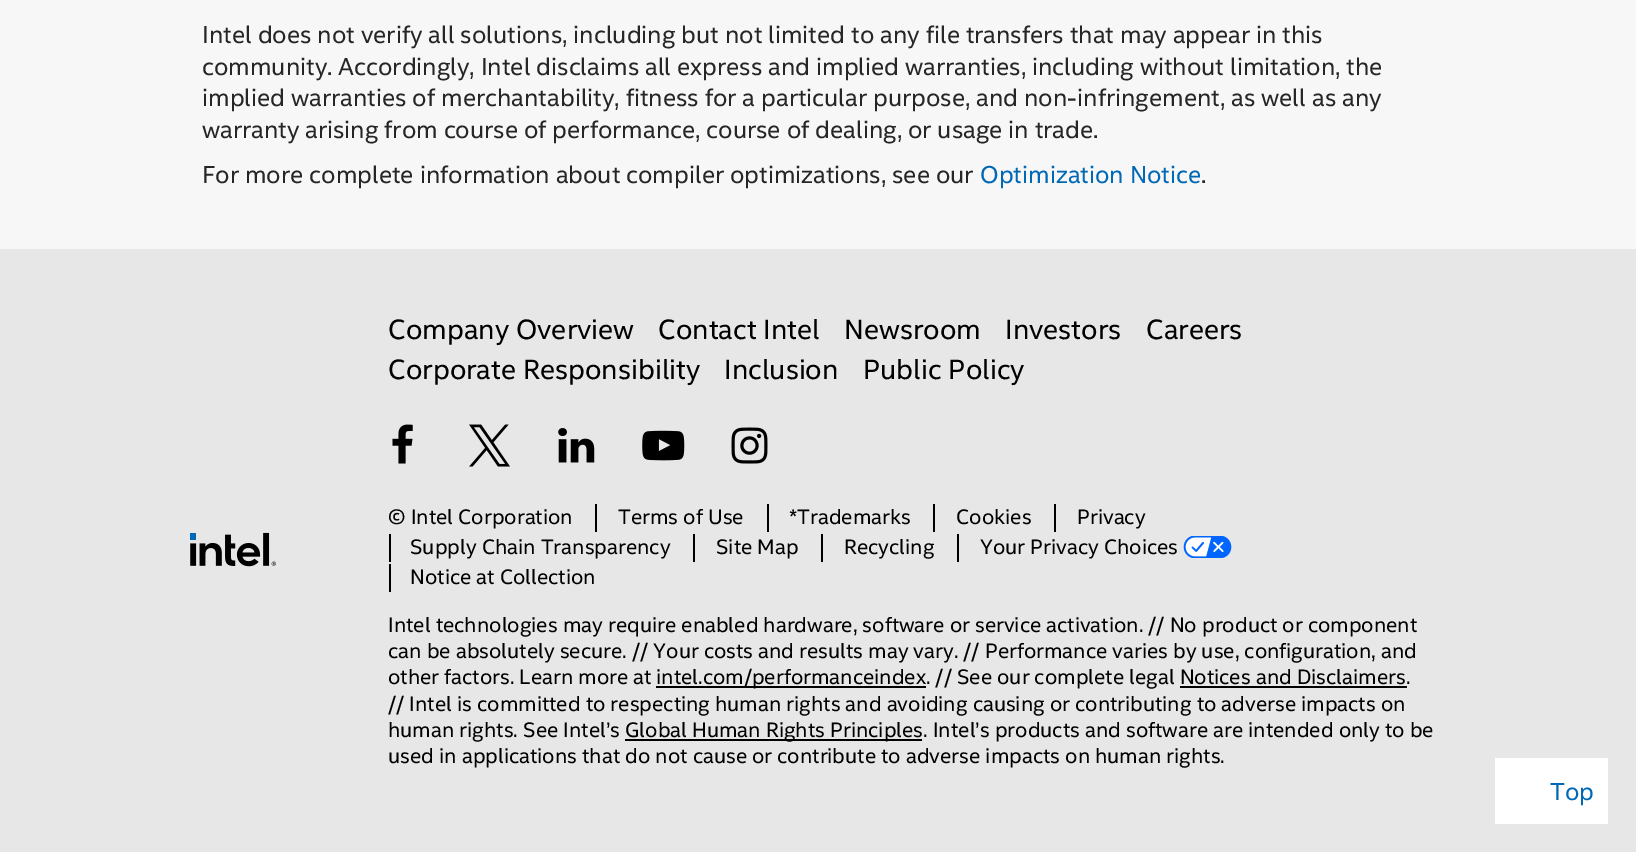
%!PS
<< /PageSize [1636 852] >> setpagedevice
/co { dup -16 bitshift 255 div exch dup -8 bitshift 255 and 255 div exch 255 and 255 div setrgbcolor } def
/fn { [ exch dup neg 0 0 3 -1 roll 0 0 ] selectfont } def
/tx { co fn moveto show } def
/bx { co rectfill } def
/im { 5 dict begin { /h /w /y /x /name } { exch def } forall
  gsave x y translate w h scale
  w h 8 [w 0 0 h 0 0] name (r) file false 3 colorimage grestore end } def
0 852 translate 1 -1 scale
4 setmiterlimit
0 0 1636 852 16#F7F7F7 bx
0 249 1636 603 16#E7E7E7 bx
1495 758 113 66 16#FFFFFF bx
(media/1.raw) 190 532 86 35 im
(media/2.raw) 392 424 21 40 im
(media/3.raw) 469 424 41 43 im
(media/4.raw) 558 428 37 35 im
(media/5.raw) 642 430 43 31 im
(media/6.raw) 731 427 37 37 im
595 504 2 28 16#000000 bx
767 504 2 28 16#000000 bx
933 504 2 28 16#000000 bx
1054 504 2 28 16#000000 bx
389 534 2 28 16#000000 bx
693 534 2 28 16#000000 bx
821 534 2 28 16#000000 bx
957 534 2 28 16#000000 bx
(media/7.raw) 1183 536 49 22 im
389 564 2 28 16#000000 bx
656 686 270 2 16#000000 bx
1180 686 227 2 16#000000 bx
625 739 297 2 16#000000 bx
(Intel does not verify all solutions, including but not limited to any file transfers that may appear in this) 202 43 /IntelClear-Regular 24.5 16#262626 tx
(community. Accordingly, Intel disclaims all express and implied warranties, including without limitation, the) 202 75 /IntelClear-Regular 24.5 16#262626 tx
(implied warranties of merchantability, fitness for a particular purpose, and non-infringement, as well as any) 202 106 /IntelClear-Regular 24.5 16#262626 tx
(warranty arising from course of performance, course of dealing, or usage in trade.) 202 138 /IntelClear-Regular 24.5 16#262626 tx
(For more complete information about compiler optimizations, see our) 202 183 /IntelClear-Regular 24.5 16#262626 tx
(Optimization Notice) 980 183 /IntelClear-Regular 24.5 16#0068B5 tx
(.) 1201 183 /IntelClear-Regular 24.5 16#262626 tx
(Top) 1550 800 /IntelClear-Regular 24.5 16#0068B5 tx
(Company Overview) 388 339 /IntelClear-Regular 28 16#000000 tx
(Contact Intel) 658 339 /IntelClear-Regular 28 16#000000 tx
(Newsroom) 844 339 /IntelClear-Regular 28 16#000000 tx
(Investors) 1005 339 /IntelClear-Regular 28 16#000000 tx
(Careers) 1146 339 /IntelClear-Regular 28 16#000000 tx
(Corporate Responsibility) 388 379 /IntelClear-Regular 28 16#000000 tx
(Inclusion) 724 379 /IntelClear-Regular 28 16#000000 tx
(Public Policy) 863 379 /IntelClear-Regular 28 16#000000 tx
(© Intel Corporation) 388 524 /IntelClear-Regular 21 16#000000 tx
(Terms of Use) 618 524 /IntelClear-Regular 21 16#000000 tx
(*Trademarks) 789 524 /IntelClear-Regular 21 16#000000 tx
(Cookies) 956 524 /IntelClear-Regular 21 16#000000 tx
(Privacy) 1077 524 /IntelClear-Regular 21 16#000000 tx
(Supply Chain Transparency) 410 554 /IntelClear-Regular 21 16#000000 tx
(Site Map) 716 554 /IntelClear-Regular 21 16#000000 tx
(Recycling) 844 554 /IntelClear-Regular 21 16#000000 tx
(Your Privacy Choices) 980 554 /IntelClear-Regular 21 16#000000 tx
(Notice at Collection) 410 584 /IntelClear-Regular 21 16#000000 tx
(Intel technologies may require enabled hardware, software or service activation. // No product or component) 388 632 /IntelClear-Regular 21 16#000000 tx
(can be absolutely secure. // Your costs and results may vary. // Performance varies by use, configuration, and) 388 658 /IntelClear-Regular 21 16#000000 tx
(other factors. Learn more at) 388 684 /IntelClear-Regular 21 16#000000 tx
(intel.com/performanceindex. // See our complete legal Notices and Disclaimers.) 656 684 /IntelClear-Regular 21 16#000000 tx
(// Intel is committed to respecting human rights and avoiding causing or contributing to adverse impacts on) 388 711 /IntelClear-Regular 21 16#000000 tx
(human rights. See Intel’s) 388 737 /IntelClear-Regular 21 16#000000 tx
(Global Human Rights Principles. Intel’s products and software are intended only to be) 625 737 /IntelClear-Regular 21 16#000000 tx
(used in applications that do not cause or contribute to adverse impacts on human rights.) 388 763 /IntelClear-Regular 21 16#000000 tx
showpage
